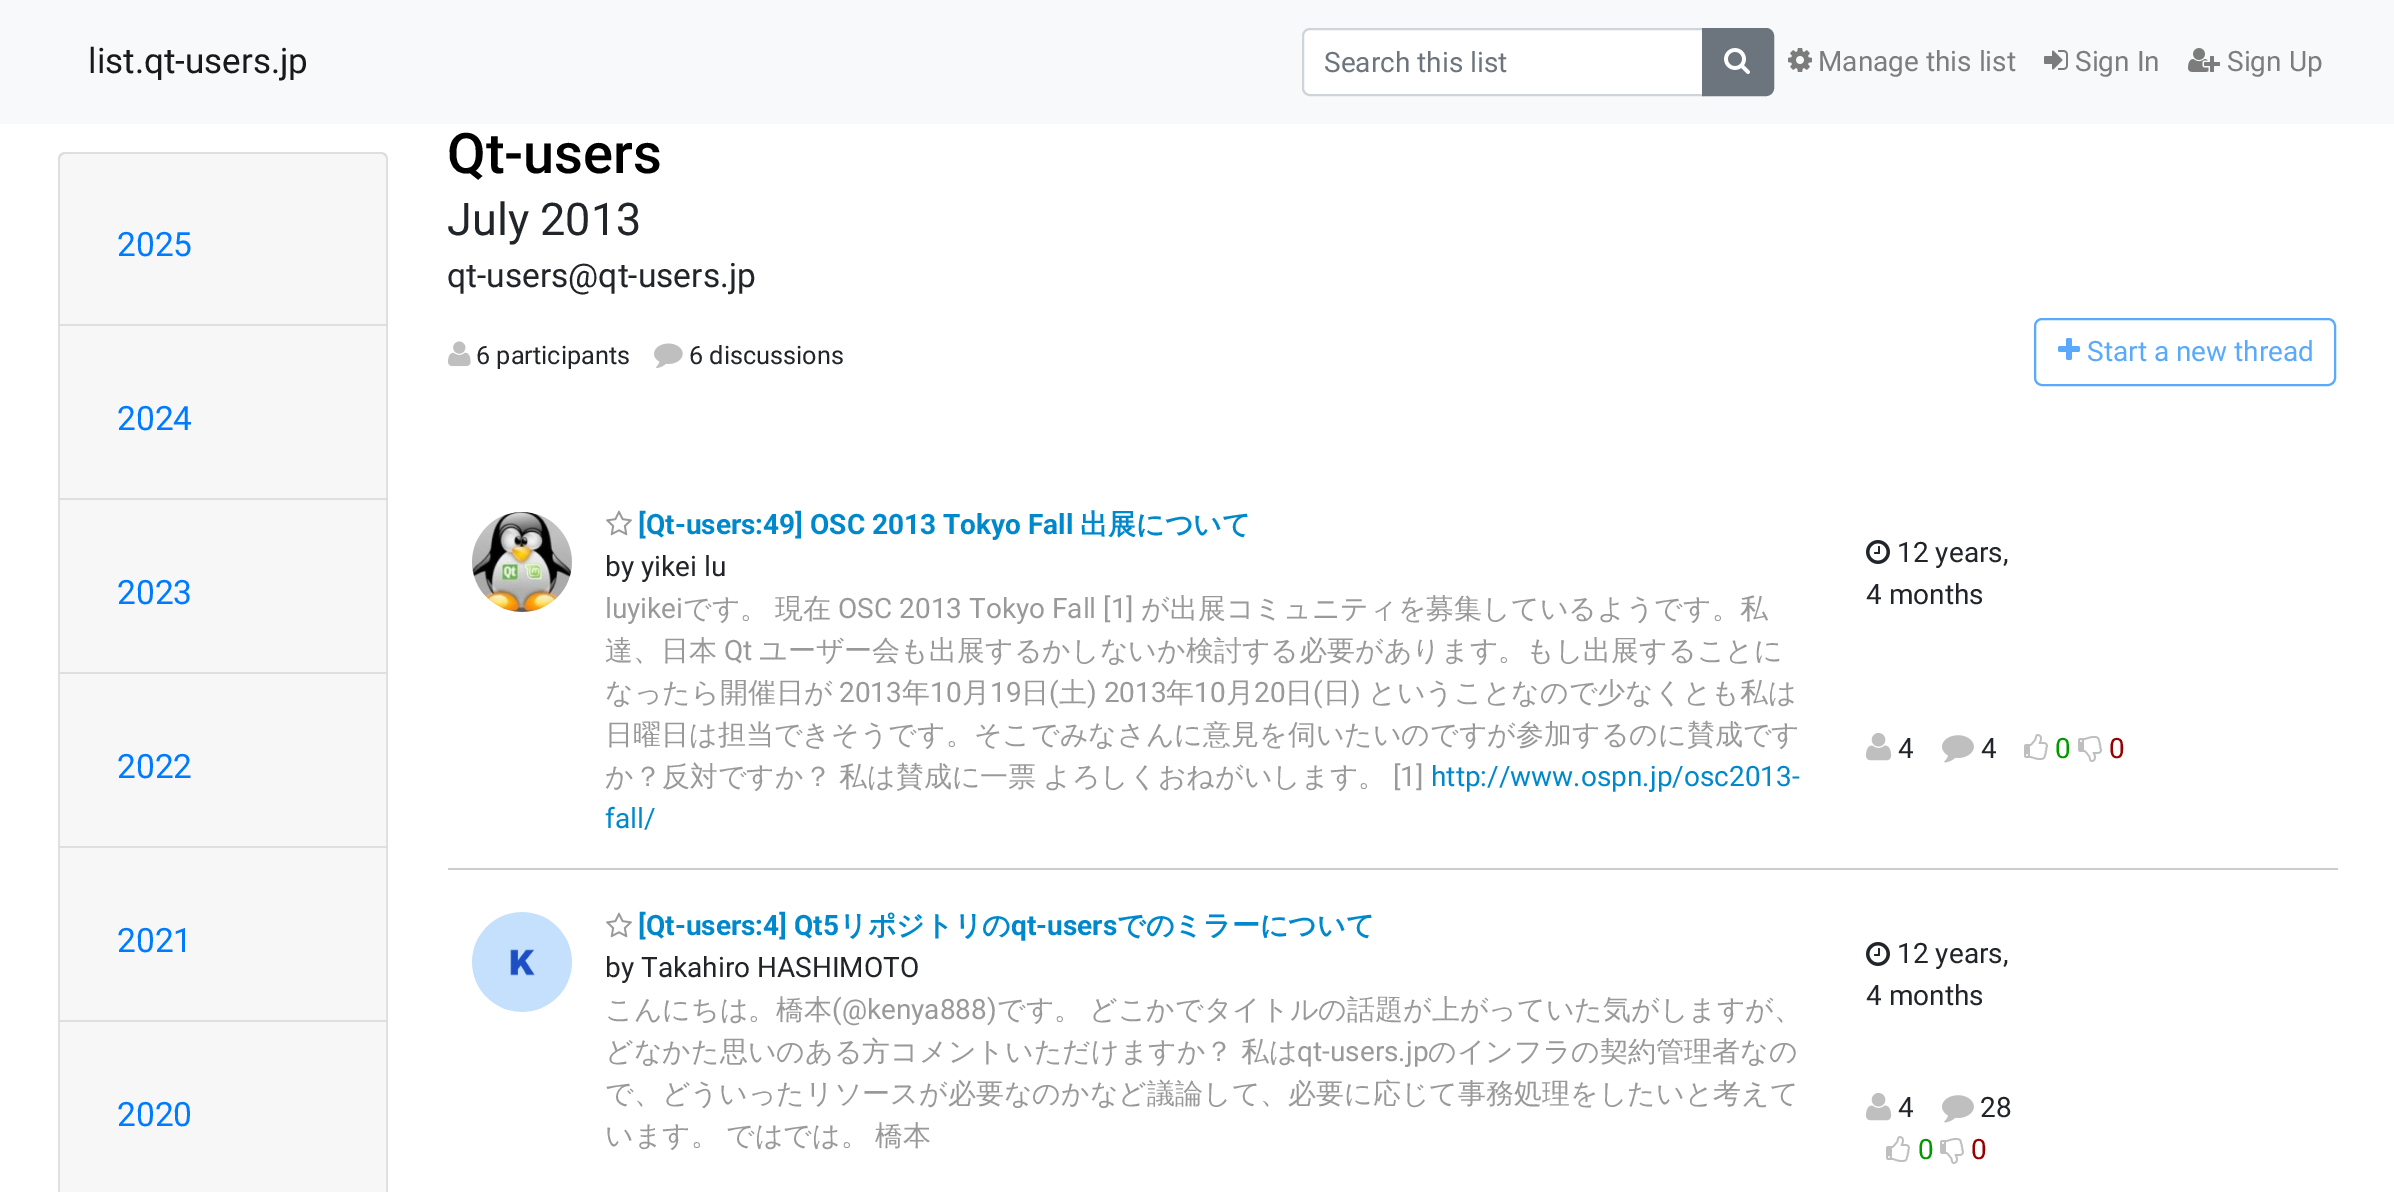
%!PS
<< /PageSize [2394 1192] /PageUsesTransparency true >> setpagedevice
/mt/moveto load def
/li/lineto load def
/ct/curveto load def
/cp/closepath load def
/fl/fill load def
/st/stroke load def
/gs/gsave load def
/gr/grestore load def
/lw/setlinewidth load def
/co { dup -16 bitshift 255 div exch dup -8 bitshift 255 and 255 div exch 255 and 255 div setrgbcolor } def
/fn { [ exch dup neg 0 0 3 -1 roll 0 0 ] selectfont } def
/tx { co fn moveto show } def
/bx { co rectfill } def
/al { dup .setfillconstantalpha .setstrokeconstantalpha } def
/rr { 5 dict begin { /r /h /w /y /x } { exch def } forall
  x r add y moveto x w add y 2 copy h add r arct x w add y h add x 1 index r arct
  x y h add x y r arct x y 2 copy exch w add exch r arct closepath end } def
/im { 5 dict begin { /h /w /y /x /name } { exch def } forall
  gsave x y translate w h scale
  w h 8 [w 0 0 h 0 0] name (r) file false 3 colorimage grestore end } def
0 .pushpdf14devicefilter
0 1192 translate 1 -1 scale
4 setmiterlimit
0 0 2394 1192 16#FFFFFF bx
0 0 2394 124 16#F8F9FA bx
16#FFFFFF co
1309 30 mt 1702 30 li 1702 94 li 1309 94 li 1306 94 1304 92 1304 89 ct 1304 35 li 1304 32 1306 30 1309 30 ct cp fl
16#CED4DA co
2 lw
1310 29 mt 1703 29 li 1703 95 li 1310 95 li 1306 95 1303 92 1303 88 ct 1303 36 li 1303 32 1306 29 1310 29 ct cp st
16#6C757D co
1703 29 mt 1766 29 li 1770 29 1773 32 1773 36 ct 1773 88 li 1773 92 1770 95 1766 95 ct 1703 95 li cp gs fl gr
st
(media/1.raw) 1724 48 26 26 im
(media/2.raw) 1788 48 24 24 im
(media/3.raw) 2044 50 24 20 im
(media/4.raw) 2188 48 32 24 im
16#DFDFDF co
65 152 mt 381 152 li 385 152 388 155 388 159 ct 388 324 li 58 324 li 58 159 li 58 155 61 152 65 152 ct cp 65 154 mt 381 154 li 384 154 386 156 386 159 ct 386 324 li 60 324 li 60 159 li 60 156 62 154 65 154 ct cp eofill
0.03 al
60 154 326 170 16#000000 bx
1 al
16#DFDFDF co
58 324 mt 388 324 li 386 326 li 60 326 li cp fl
0.12 al
16#000000 co
388 324 mt 388 498 li 386 498 li 386 326 li cp fl
58 498 mt 58 324 li 60 326 li 60 498 li cp fl
1 al
60 326 326 172 16#F7F7F7 bx
16#DFDFDF co
58 498 mt 388 498 li 386 500 li 60 500 li cp fl
0.12 al
16#000000 co
388 498 mt 388 672 li 386 672 li 386 500 li cp fl
58 672 mt 58 498 li 60 500 li 60 672 li cp fl
1 al
60 500 326 172 16#F7F7F7 bx
16#DFDFDF co
58 672 mt 388 672 li 386 674 li 60 674 li cp fl
0.12 al
16#000000 co
388 672 mt 388 846 li 386 846 li 386 674 li cp fl
58 846 mt 58 672 li 60 674 li 60 846 li cp fl
1 al
60 674 326 172 16#F7F7F7 bx
16#DFDFDF co
58 846 mt 388 846 li 386 848 li 60 848 li cp fl
0.12 al
16#000000 co
388 846 mt 388 1020 li 386 1020 li 386 848 li cp fl
58 1020 mt 58 846 li 60 848 li 60 1020 li cp fl
1 al
60 848 326 172 16#F7F7F7 bx
16#DFDFDF co
58 1020 mt 388 1020 li 386 1022 li 60 1022 li cp fl
0.12 al
16#000000 co
388 1020 mt 388 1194 li 386 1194 li 386 1022 li cp fl
58 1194 mt 58 1020 li 60 1022 li 60 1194 li cp fl
1 al
60 1022 326 170 16#F7F7F7 bx
(media/5.raw) 448 341 23 26 im
(media/6.raw) 654 343 29 25 im
16#59A9FF co
2035 319 300 66 7 rr st
(media/7.raw) 2058 338 22 22 im
448 868 1890 2 16#CCCCCC bx
(media/8.raw) 472 512 100 100 im
(media/9.raw) 606 510 26 26 im
(media/10.raw) 1866 540 24 24 im
(media/11.raw) 1866 732 26 29 im
(media/12.raw) 1942 735 32 28 im
(media/13.raw) 2024 734 24 26 im
(media/14.raw) 2078 736 24 26 im
(media/15.raw) 472 912 100 100 im
(media/9.raw) 606 912 26 26 im
(media/10.raw) 1866 942 24 24 im
(media/11.raw) 1866 1092 26 29 im
(media/12.raw) 1942 1095 32 28 im
(media/13.raw) 1886 1136 24 26 im
(media/14.raw) 1940 1138 24 26 im
(list.qt-users.jp) 88 73 /Roboto-Regular 35 16#191919 tx
(Search this list) 1324 72 /Roboto-Regular 28 16#6C757D tx
(Manage this list) 1818 71 /Roboto-Regular 28 16#7C7D7D tx
(Sign In) 2075 71 /Roboto-Regular 28 16#7C7D7D tx
(Sign Up) 2227 71 /Roboto-Regular 28 16#7C7D7D tx
(2025) 117 256 /Roboto-Regular 33.5 16#007BFF tx
(2024) 117 430 /Roboto-Regular 33.5 16#007BFF tx
(2023) 117 604 /Roboto-Regular 33.5 16#007BFF tx
(2022) 117 778 /Roboto-Regular 33.5 16#007BFF tx
(2021) 117 952 /Roboto-Regular 33.5 16#007BFF tx
(2020) 117 1126 /Roboto-Regular 33.5 16#007BFF tx
(Qt-users) 447 173 /Roboto-Medium 56 16#000000 tx
(July 2013) 447 235 /Roboto-Regular 45 16#212529 tx
(qt-users@qt-users.jp) 447 287 /Roboto-Regular 33.5 16#212529 tx
(6 participants) 476 364 /Roboto-Regular 25.25 16#212529 tx
(6 discussions) 689 364 /Roboto-Regular 25.25 16#212529 tx
(Start a new thread) 2087 361 /Roboto-Regular 28 16#59A9FF tx
([Qt-users:49] OSC 2013 Tokyo Fall) 638 534 /Roboto-Bold 28 16#0088CC tx
(出展について) 1080 534 /WenQuanYiZenHei-Bold 28 16#0088CC tx
(by yikei lu) 605 576 /Roboto-Regular 28 16#212529 tx
(luyikei) 605 618 /Roboto-Regular 28 16#999999 tx
(です。) 683 618 /WenQuanYiZenHei-Medium 28 16#999999 tx
(現在) 775 618 /WenQuanYiZenHei-Medium 28 16#999999 tx
(OSC 2013 Tokyo Fall [1]) 838 618 /Roboto-Regular 28 16#999999 tx
(が出展コミュニティを募集しているようです。私) 1141 618 /WenQuanYiZenHei-Medium 28 16#999999 tx
(達、日本) 605 660 /WenQuanYiZenHei-Medium 28 16#999999 tx
(Qt) 724 660 /Roboto-Regular 28 16#999999 tx
(ユーザー会も出展するかしないか検討する必要があります。もし出展することに) 759 660 /WenQuanYiZenHei-Medium 28 16#999999 tx
(なったら開催日が) 605 702 /WenQuanYiZenHei-Medium 28 16#999999 tx
(2013) 839 702 /Roboto-Regular 28 16#999999 tx
(年) 902 702 /WenQuanYiZenHei-Medium 28 16#999999 tx
(10) 930 702 /Roboto-Regular 28 16#999999 tx
(月) 962 702 /WenQuanYiZenHei-Medium 28 16#999999 tx
(19) 990 702 /Roboto-Regular 28 16#999999 tx
(日) 1021 702 /WenQuanYiZenHei-Medium 28 16#999999 tx
(\() 1049 702 /Roboto-Regular 28 16#999999 tx
(土) 1059 702 /WenQuanYiZenHei-Medium 28 16#999999 tx
(\) 2013) 1087 702 /Roboto-Regular 28 16#999999 tx
(年) 1166 702 /WenQuanYiZenHei-Medium 28 16#999999 tx
(10) 1194 702 /Roboto-Regular 28 16#999999 tx
(月) 1226 702 /WenQuanYiZenHei-Medium 28 16#999999 tx
(20) 1254 702 /Roboto-Regular 28 16#999999 tx
(日) 1285 702 /WenQuanYiZenHei-Medium 28 16#999999 tx
(\() 1313 702 /Roboto-Regular 28 16#999999 tx
(日) 1323 702 /WenQuanYiZenHei-Medium 28 16#999999 tx
(\)) 1351 702 /Roboto-Regular 28 16#999999 tx
(ということなので少なくとも私は) 1368 702 /WenQuanYiZenHei-Medium 28 16#999999 tx
(日曜日は担当できそうです。そこでみなさんに意見を伺いたいのですが参加するのに賛成です) 605 744 /WenQuanYiZenHei-Medium 28 16#999999 tx
(か？反対ですか？) 605 786 /WenQuanYiZenHei-Medium 28 16#999999 tx
(私は賛成に一票) 839 786 /WenQuanYiZenHei-Medium 28 16#999999 tx
(よろしくおねがいします。) 1043 786 /WenQuanYiZenHei-Medium 28 16#999999 tx
([1]) 1393 786 /Roboto-Regular 28 16#999999 tx
(http://www.ospn.jp/osc2013-) 1431 786 /Roboto-Regular 28 16#0088CC tx
(fall/) 605 828 /Roboto-Regular 28 16#0088CC tx
(12 years,) 1897 562 /Roboto-Regular 28 16#212529 tx
(4 months) 1866 604 /Roboto-Regular 28 16#212529 tx
(4) 1898 758 /Roboto-Regular 28 16#212529 tx
(4) 1981 758 /Roboto-Regular 28 16#212529 tx
(0) 2055 758 /Roboto-Regular 28 16#009900 tx
(0) 2109 758 /Roboto-Regular 28 16#990000 tx
([Qt-users:4] Qt5) 638 935 /Roboto-Bold 28 16#0088CC tx
(リポジトリの) 839 935 /WenQuanYiZenHei-Bold 28 16#0088CC tx
(qt-users) 1011 935 /Roboto-Bold 28 16#0088CC tx
(でのミラーについて) 1117 935 /WenQuanYiZenHei-Bold 28 16#0088CC tx
(by Takahiro HASHIMOTO) 605 977 /Roboto-Regular 28 16#212529 tx
(こんにちは。橋本) 605 1019 /WenQuanYiZenHei-Medium 28 16#999999 tx
(\(@kenya888\)) 832 1019 /Roboto-Regular 28 16#999999 tx
(です。) 997 1019 /WenQuanYiZenHei-Medium 28 16#999999 tx
(どこかでタイトルの話題が上がっていた気がしますが、) 1089 1019 /WenQuanYiZenHei-Medium 28 16#999999 tx
605 1061 mt -1 0 32 (どなかた思いのある方コメントいただけますか？ 私は) widthshow
(qt-users.jp) 1297 1061 /Roboto-Regular 28 16#999999 tx
(のインフラの契約管理者なの) 1428 1061 /WenQuanYiZenHei-Medium 28 16#999999 tx
(で、どういったリソースが必要なのかなど議論して、必要に応じて事務処理をしたいと考えて) 605 1103 /WenQuanYiZenHei-Medium 28 16#999999 tx
(います。) 605 1145 /WenQuanYiZenHei-Medium 28 16#999999 tx
(ではでは。) 726 1145 /WenQuanYiZenHei-Medium 28 16#999999 tx
(橋本) 875 1145 /WenQuanYiZenHei-Medium 28 16#999999 tx
(12 years,) 1897 963 /Roboto-Regular 28 16#212529 tx
(4 months) 1866 1005 /Roboto-Regular 28 16#212529 tx
(4) 1898 1117 /Roboto-Regular 28 16#212529 tx
(28) 1980 1117 /Roboto-Regular 28 16#212529 tx
(0) 1918 1159 /Roboto-Regular 28 16#009900 tx
(0) 1971 1159 /Roboto-Regular 28 16#990000 tx
.poppdf14devicefilter showpage
